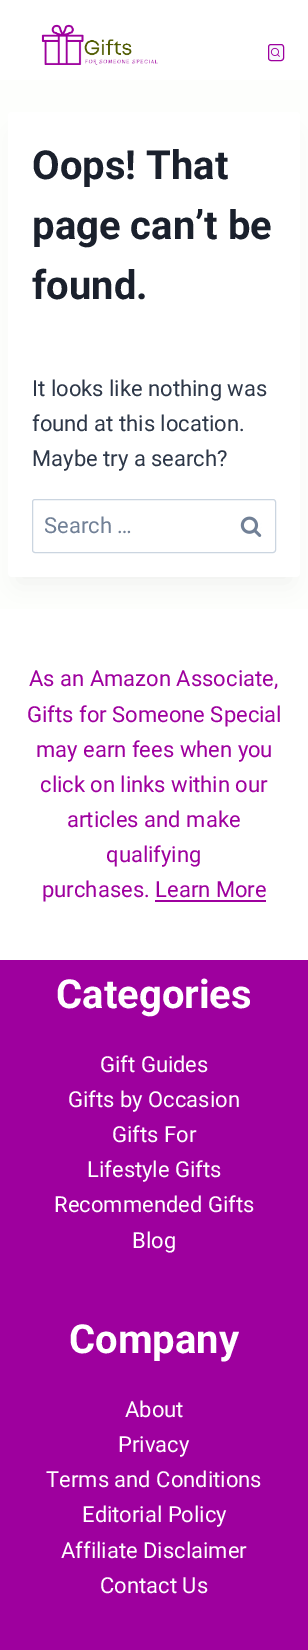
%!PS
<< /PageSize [308 1650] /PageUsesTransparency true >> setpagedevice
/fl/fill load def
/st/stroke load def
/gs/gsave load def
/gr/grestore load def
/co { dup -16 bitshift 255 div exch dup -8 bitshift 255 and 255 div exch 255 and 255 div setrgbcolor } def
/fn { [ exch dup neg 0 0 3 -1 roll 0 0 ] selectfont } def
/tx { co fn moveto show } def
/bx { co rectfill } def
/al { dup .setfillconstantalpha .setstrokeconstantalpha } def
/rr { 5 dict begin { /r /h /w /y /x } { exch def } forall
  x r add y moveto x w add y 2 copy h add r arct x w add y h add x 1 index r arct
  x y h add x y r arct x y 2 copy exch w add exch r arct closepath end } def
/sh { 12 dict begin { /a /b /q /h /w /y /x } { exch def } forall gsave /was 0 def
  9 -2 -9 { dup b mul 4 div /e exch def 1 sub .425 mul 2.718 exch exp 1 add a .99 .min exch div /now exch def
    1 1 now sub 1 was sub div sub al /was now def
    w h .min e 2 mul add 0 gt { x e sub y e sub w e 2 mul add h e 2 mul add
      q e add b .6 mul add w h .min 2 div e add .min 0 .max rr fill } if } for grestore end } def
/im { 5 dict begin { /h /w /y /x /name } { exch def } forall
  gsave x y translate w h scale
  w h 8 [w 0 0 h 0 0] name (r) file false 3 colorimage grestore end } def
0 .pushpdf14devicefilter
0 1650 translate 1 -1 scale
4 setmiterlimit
0 0 308 1650 16#FDFEFC bx
0 0 308 80 16#FFFFFF bx
(media/1.raw) 41 24 117 41 im
16#F7FAFC co
268.5 44.5 15 16 2.5 rr gs fl gr
16#9E009E co
st
(media/2.raw) 270 47 10 10 im
0 609 308 351 16#FFFFFF bx
16#000000 co
18 137 272 445 0 12.5 .05 sh
16#FFFFFF co
8 112 292 465 4 rr fl
16#CBD5E0 co
32.5 499.5 243 53 2.5 rr st
(media/3.raw) 240 516 22 21 im
155 900 111 2 16#9E009E bx
0 960 308 690 16#9E009E bx
(Oops! That) 32 179 /Roboto-Bold 40 16#1A202C tx
(page can’t be) 32 239 /Roboto-Bold 40 16#1A202C tx
(found.) 32 299 /Roboto-Bold 40 16#1A202C tx
(It looks like nothing was) 32 396 /Roboto-Regular 22 16#2D3748 tx
(found at this location.) 32 431 /Roboto-Regular 22 16#2D3748 tx
(Maybe try a search?) 32 466 /Roboto-Regular 22 16#2D3748 tx
(Search …) 44 533 /Roboto-Regular 22 16#718096 tx
(As an Amazon Associate,) 29 686 /Roboto-Regular 22 16#9E009E tx
(Gifts for Someone Special) 27 722 /Roboto-Regular 22 16#9E009E tx
(may earn fees when you) 36 757 /Roboto-Regular 22 16#9E009E tx
(click on links within our) 40 792 /Roboto-Regular 22 16#9E009E tx
(articles and make) 67 827 /Roboto-Regular 22 16#9E009E tx
(qualifying) 106 862 /Roboto-Regular 22 16#9E009E tx
(purchases. Learn More) 42 897 /Roboto-Regular 22 16#9E009E tx
(Categories) 56 1008 /Roboto-Bold 40 16#FFFFFF tx
(Gift Guides) 100 1072 /Roboto-Regular 22 16#FFFFFF tx
(Gifts by Occasion) 68 1107 /Roboto-Regular 22 16#FFFFFF tx
(Gifts For) 112 1142 /Roboto-Regular 22 16#FFFFFF tx
(Lifestyle Gifts) 87 1177 /Roboto-Regular 22 16#FFFFFF tx
(Recommended Gifts) 54 1212 /Roboto-Regular 22 16#FFFFFF tx
(Blog) 132 1248 /Roboto-Regular 22 16#FFFFFF tx
(Company) 69 1353 /Roboto-Bold 40 16#FFFFFF tx
(About) 125 1417 /Roboto-Regular 22 16#FFFFFF tx
(Privacy) 118 1452 /Roboto-Regular 22 16#FFFFFF tx
(Terms and Conditions) 46 1487 /Roboto-Regular 22 16#FFFFFF tx
(Editorial Policy) 82 1522 /Roboto-Regular 22 16#FFFFFF tx
(Affiliate Disclaimer) 61 1558 /Roboto-Regular 22 16#FFFFFF tx
(Contact Us) 100 1593 /Roboto-Regular 22 16#FFFFFF tx
.poppdf14devicefilter showpage
